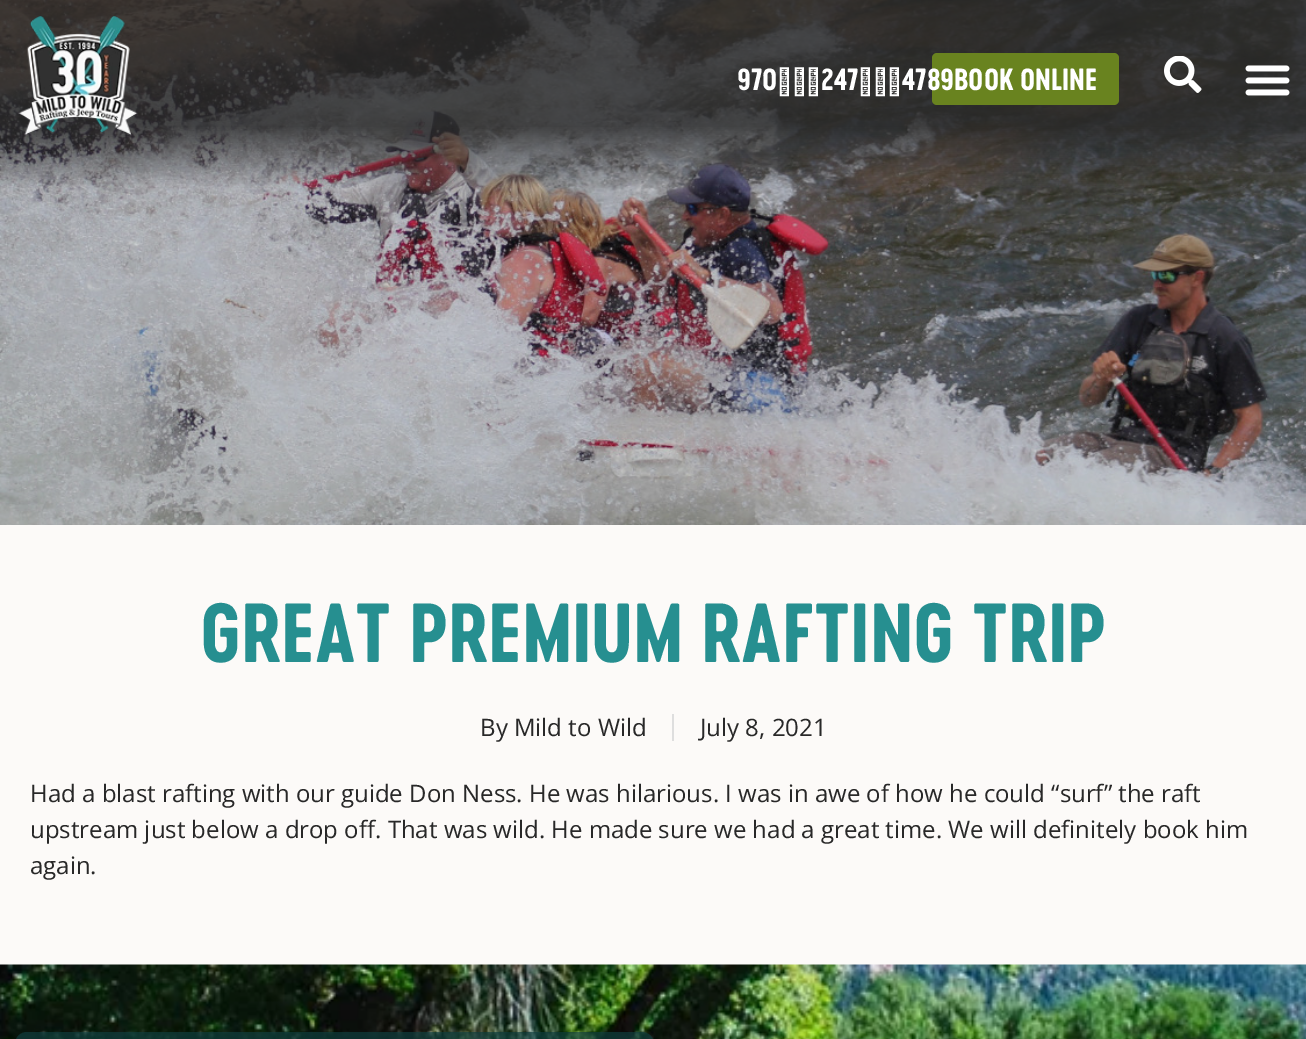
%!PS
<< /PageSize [1306 1039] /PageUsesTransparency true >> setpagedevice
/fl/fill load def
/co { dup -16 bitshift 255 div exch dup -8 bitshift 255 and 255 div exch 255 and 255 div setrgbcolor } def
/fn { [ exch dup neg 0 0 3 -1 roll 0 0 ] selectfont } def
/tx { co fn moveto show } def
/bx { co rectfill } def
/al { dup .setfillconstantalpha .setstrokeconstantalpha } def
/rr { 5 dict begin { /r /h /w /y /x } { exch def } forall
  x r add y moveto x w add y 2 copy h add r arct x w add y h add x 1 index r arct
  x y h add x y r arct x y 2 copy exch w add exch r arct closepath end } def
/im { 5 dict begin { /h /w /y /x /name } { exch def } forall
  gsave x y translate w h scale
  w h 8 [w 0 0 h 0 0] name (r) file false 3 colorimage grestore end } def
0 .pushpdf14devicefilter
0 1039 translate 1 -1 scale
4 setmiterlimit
0 0 1306 1039 16#FCFAF8 bx
(media/4.raw) 0 0 1306 525 im
(media/1.raw) 18 16 120 120 im
16#69831F co
932 53 187 52 5 rr fl
(media/2.raw) 1164 56 38 37 im
(media/3.raw) 1245 65 45 31 im
672 714 2 27 16#DEDEDE bx
(media/5.raw) 0 964 1306 75 im
0.71 al
16#0F3D3D co
15 1032 639 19 12 rr fl
1 al
(970‑247‑4789) 737 90 /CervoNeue-Bold 28.5 16#FFFFFF tx
(BOOK ONLINE) 954 90 /CervoNeue-Bold 28.5 16#FFFFFF tx
(GREAT PREMIUM RAFTING TRIP) 200 662 /CervoNeue-Bold 78 16#268F90 tx
(By Mild to Wild) 480 736 /OpenSans-Regular 24 16#282828 tx
(July 8, 2021) 700 736 /OpenSans-Regular 24 16#282828 tx
(Had a blast rafting with our guide Don Ness. He was hilarious. I was in awe of how he could “surf” the raft) 30 802 /OpenSans-Regular 24 16#282828 tx
(upstream just below a drop off. That was wild. He made sure we had a great time. We will definitely book him) 30 838 /OpenSans-Regular 24 16#282828 tx
(again.) 30 874 /OpenSans-Regular 24 16#282828 tx
.poppdf14devicefilter showpage
